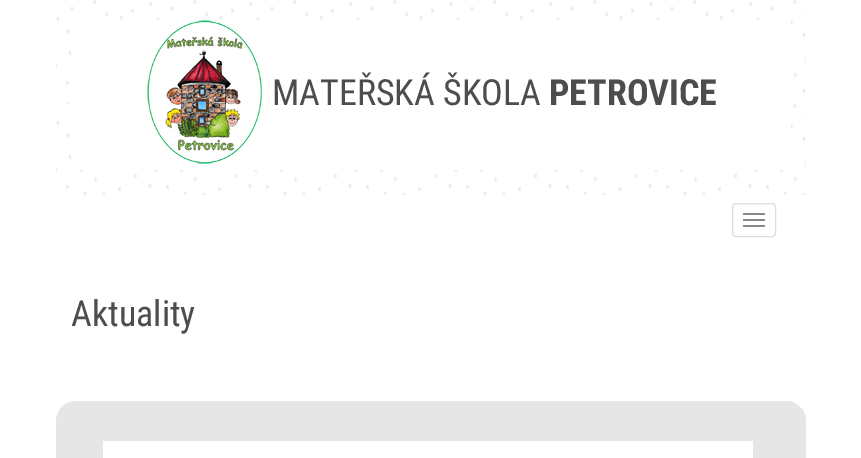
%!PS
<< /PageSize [861 458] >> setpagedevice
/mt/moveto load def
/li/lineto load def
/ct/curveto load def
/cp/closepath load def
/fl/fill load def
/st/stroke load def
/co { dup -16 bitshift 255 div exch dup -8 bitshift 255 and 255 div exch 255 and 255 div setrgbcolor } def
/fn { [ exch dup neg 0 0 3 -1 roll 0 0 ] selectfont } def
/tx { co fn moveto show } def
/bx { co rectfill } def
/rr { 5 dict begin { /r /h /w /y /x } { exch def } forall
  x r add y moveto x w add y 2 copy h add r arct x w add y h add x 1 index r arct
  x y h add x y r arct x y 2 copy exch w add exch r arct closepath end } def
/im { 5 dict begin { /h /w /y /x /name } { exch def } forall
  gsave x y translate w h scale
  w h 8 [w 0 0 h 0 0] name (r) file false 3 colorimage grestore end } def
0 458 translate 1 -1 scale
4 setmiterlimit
0 0 861 458 16#FFFFFF bx
(media/1.raw) 56 0 750 195 im
71 20 720 150 16#FFFFFF bx
(media/2.raw) 147 20 115 144 im
16#DDDDDD co
732.5 203.5 43 33 3.5 rr st
16#888888 co
743 213 22 2 1 rr fl
743 219 22 2 1 rr fl
743 225 22 2 1 rr fl
16#E6E6E6 co
76 401 mt 786 401 li 797 401 806 410 806 421 ct 806 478 li 56 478 li 56 421 li 56 410 65 401 76 401 ct cp fl
103 441 650 17 16#FFFFFF bx
(MATEŘSKÁ ŠKOLA) 272 105 /RobotoCondensed-Regular 36 16#4D4D4D tx
(PETROVICE) 549 105 /RobotoCondensed-Bold 36 16#4D4D4D tx
(Aktuality) 71 326 /RobotoCondensed-Regular 36 16#4D4D4D tx
showpage
